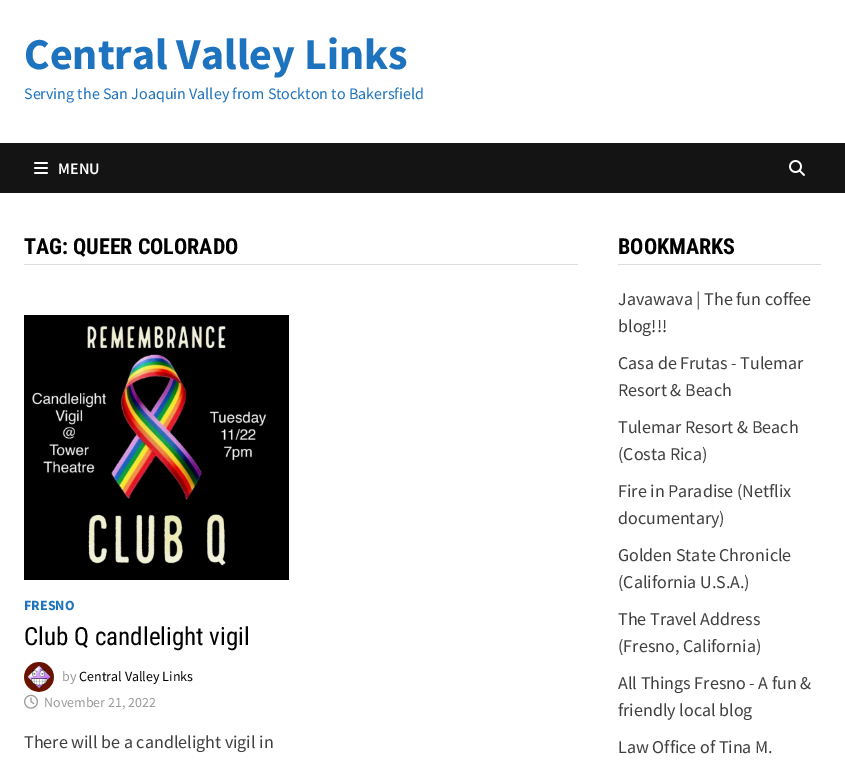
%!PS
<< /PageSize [845 760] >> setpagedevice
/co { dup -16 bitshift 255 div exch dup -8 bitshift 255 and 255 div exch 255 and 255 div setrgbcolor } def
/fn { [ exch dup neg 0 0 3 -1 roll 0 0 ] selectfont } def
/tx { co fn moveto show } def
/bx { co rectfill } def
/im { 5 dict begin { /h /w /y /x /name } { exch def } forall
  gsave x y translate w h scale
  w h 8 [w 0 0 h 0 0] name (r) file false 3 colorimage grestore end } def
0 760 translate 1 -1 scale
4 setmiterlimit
0 0 845 760 16#FFFFFF bx
0 143 845 50 16#141414 bx
(media/1.raw) 34 162 14 12 im
(media/2.raw) 789 160 16 16 im
24 264 554 1 16#DDDDDD bx
(media/3.raw) 24 315 265 265 im
(media/4.raw) 24 662 30 30 im
(media/5.raw) 24 694 14 15 im
618 264 203 1 16#DDDDDD bx
(Central Valley Links) 24 69 /SourceSansPro-Bold 44 16#1E73BE tx
(Serving the San Joaquin Valley from Stockton to Bakersfield) 24 99 /SourceSansPro-Regular 16 16#1E73BE tx
(MENU) 58 174 /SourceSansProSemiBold-SemiBold 16 16#FFFFFF tx
(TAG: QUEER COLORADO) 24 254 /RobotoCondensed-Bold 22 16#000000 tx
(FRESNO) 24 610 /SourceSansPro-Bold 14 16#1E73BE tx
(Club Q candlelight vigil) 24 645 /RobotoCondensed-Regular 25 16#000000 tx
(by) 62 681 /SourceSansPro-Regular 14 16#999999 tx
(Central Valley Links) 79 681 /SourceSansPro-Regular 14 16#000000 tx
(November 21, 2022) 44 707 /SourceSansPro-Regular 14 16#999999 tx
(There will be a candlelight vigil in) 24 748 /SourceSansPro-Regular 18 16#404040 tx
(BOOKMARKS) 618 254 /RobotoCondensed-Bold 22 16#000000 tx
(Javawava | The fun coffee) 618 305 /SourceSansPro-Regular 18 16#404040 tx
(blog!!!) 618 332 /SourceSansPro-Regular 18 16#404040 tx
(Casa de Frutas - Tulemar) 618 369 /SourceSansPro-Regular 18 16#404040 tx
(Resort & Beach) 618 396 /SourceSansPro-Regular 18 16#404040 tx
(Tulemar Resort & Beach) 618 433 /SourceSansPro-Regular 18 16#404040 tx
(\(Costa Rica\)) 618 460 /SourceSansPro-Regular 18 16#404040 tx
(Fire in Paradise \(Netflix) 618 497 /SourceSansPro-Regular 18 16#404040 tx
(documentary\)) 618 524 /SourceSansPro-Regular 18 16#404040 tx
(Golden State Chronicle) 618 561 /SourceSansPro-Regular 18 16#404040 tx
(\(California U.S.A.\)) 618 588 /SourceSansPro-Regular 18 16#404040 tx
(The Travel Address) 618 625 /SourceSansPro-Regular 18 16#404040 tx
(\(Fresno, California\)) 618 652 /SourceSansPro-Regular 18 16#404040 tx
(All Things Fresno - A fun &) 618 689 /SourceSansPro-Regular 18 16#404040 tx
(friendly local blog) 618 716 /SourceSansPro-Regular 18 16#404040 tx
(Law Office of Tina M.) 618 753 /SourceSansPro-Regular 18 16#404040 tx
showpage
